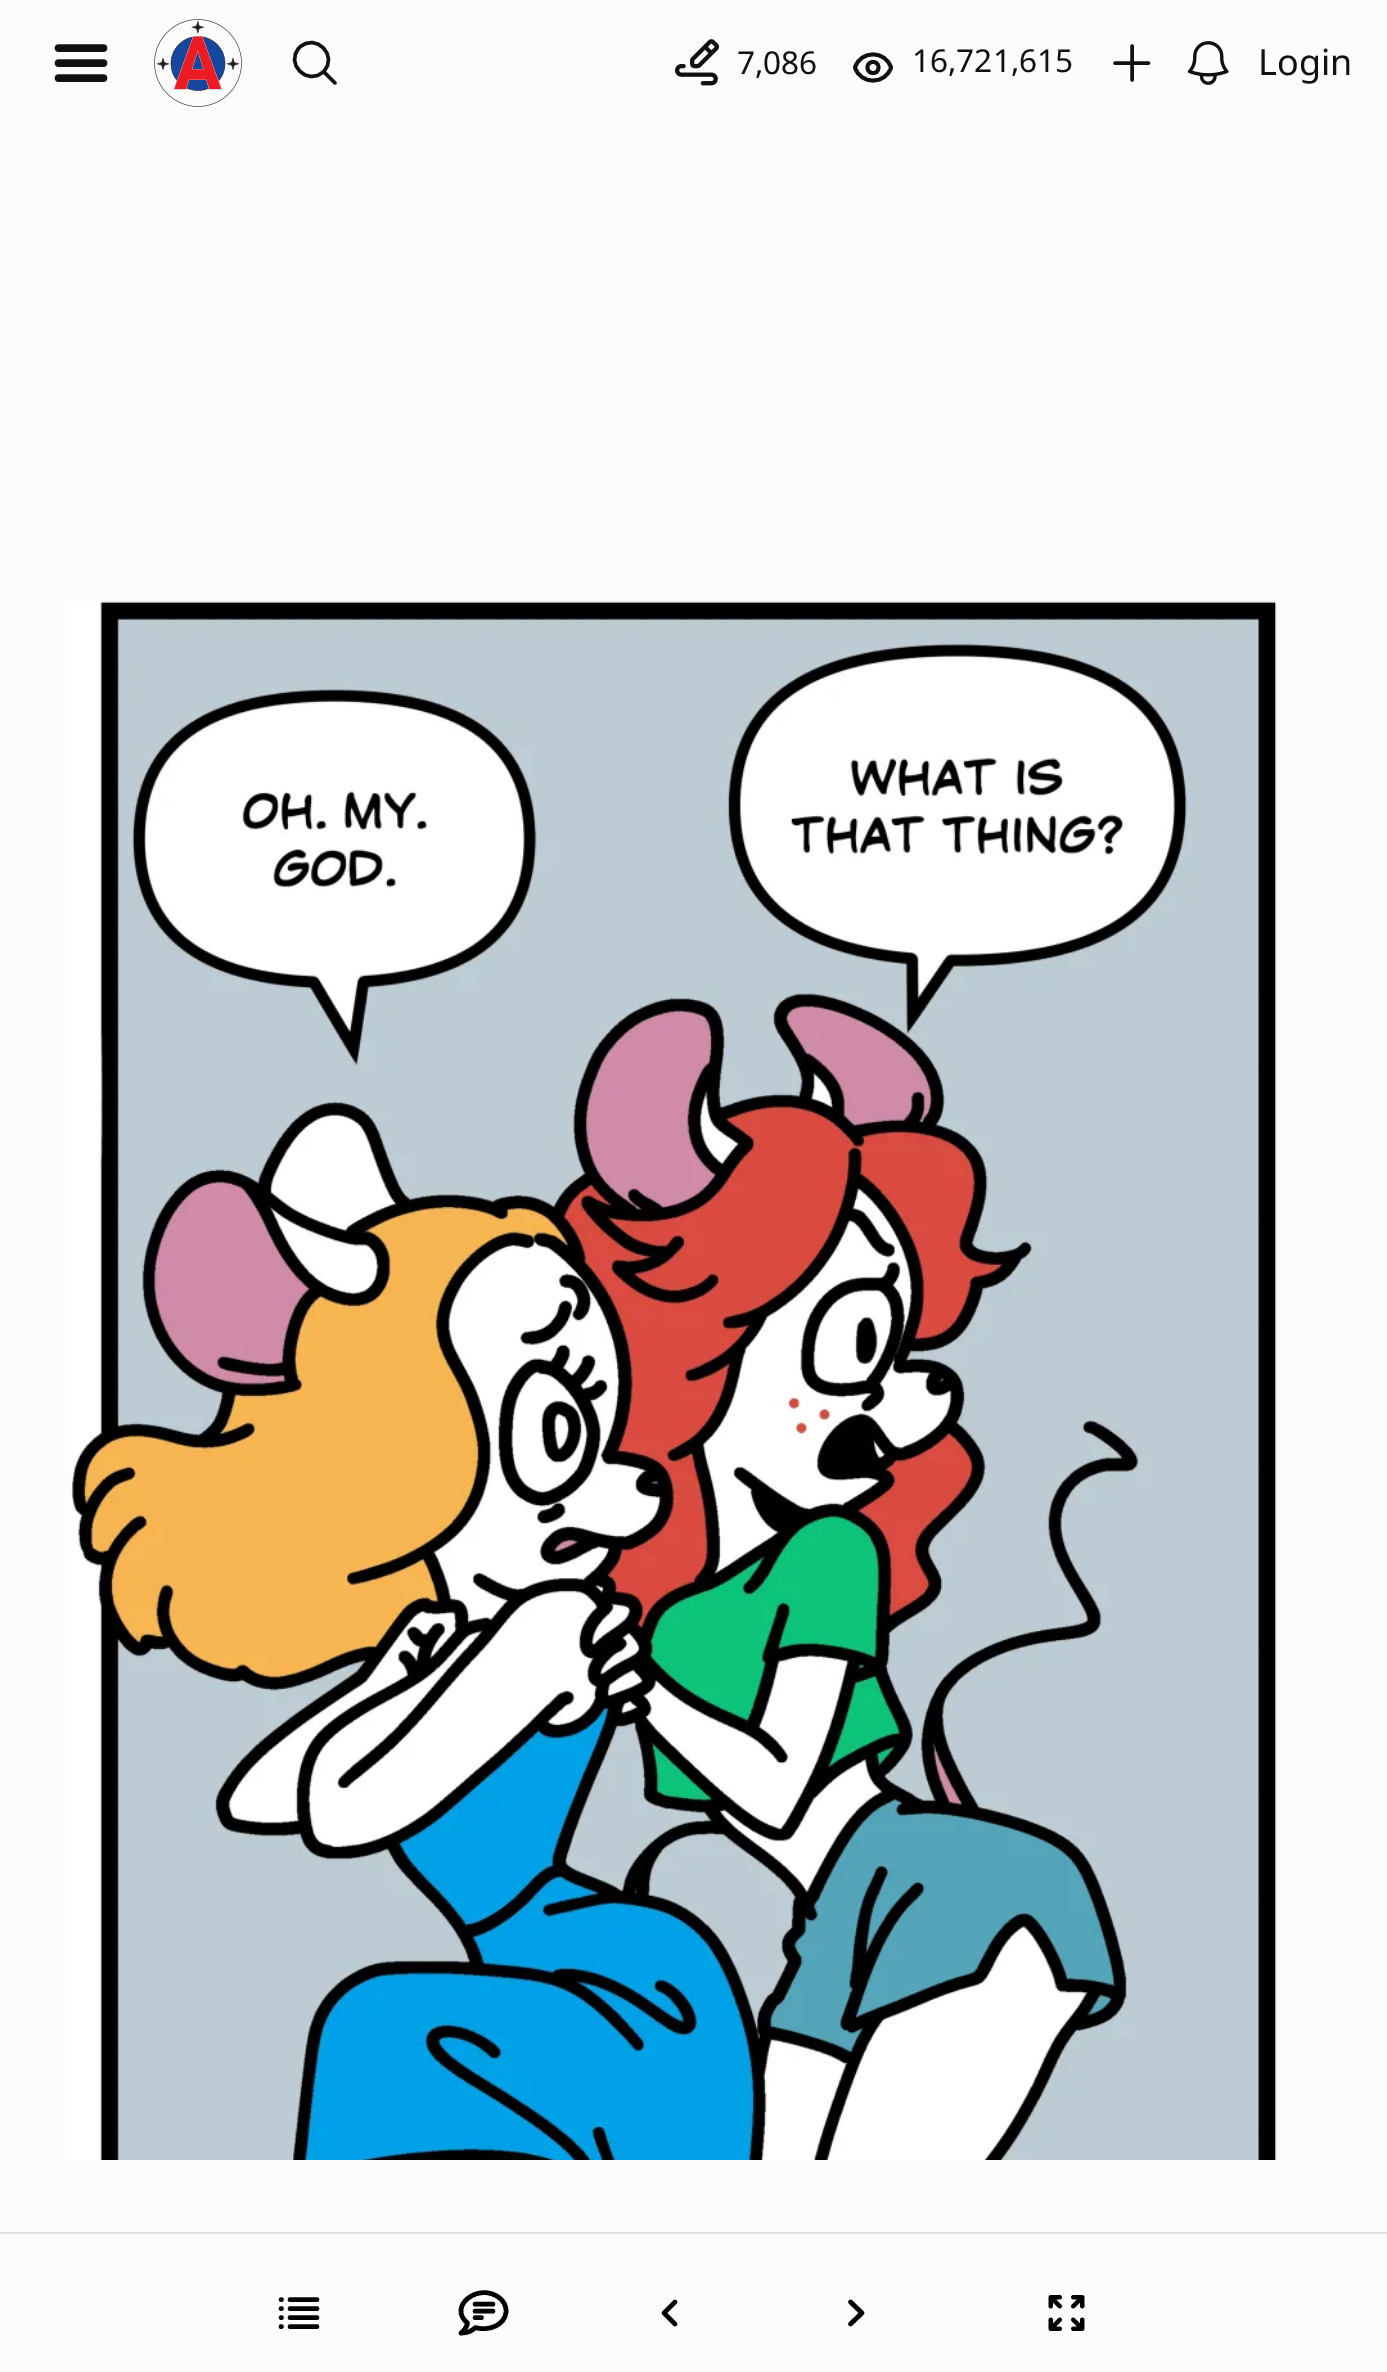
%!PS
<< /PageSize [1387 2372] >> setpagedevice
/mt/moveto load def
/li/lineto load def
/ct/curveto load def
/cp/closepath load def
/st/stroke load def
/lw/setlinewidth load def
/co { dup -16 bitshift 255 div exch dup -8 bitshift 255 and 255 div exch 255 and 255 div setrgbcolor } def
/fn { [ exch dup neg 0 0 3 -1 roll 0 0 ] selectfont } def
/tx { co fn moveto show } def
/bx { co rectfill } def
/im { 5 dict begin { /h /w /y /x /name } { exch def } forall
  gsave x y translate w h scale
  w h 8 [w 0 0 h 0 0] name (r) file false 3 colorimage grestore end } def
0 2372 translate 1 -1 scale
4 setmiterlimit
0 0 1387 2372 16#FCFCFC bx
16#111111 co
7.5 lw
1 setlinecap
1 setlinejoin
58.5 48 mt 103.5 48 li 58.5 63 mt 103.5 63 li 58.5 78 mt 103.5 78 li st
(media/1.raw) 154 19 88 88 im
3.4 lw
335 83 mt 323.5 71.5 li 323.5 71.5 mt 339 56 315.5 32 299.5 47.5 ct 284 63.5 308 87 323.5 71.5 ct cp st
(media/2.raw) 675 39 45 47 im
3.8 lw
878.5 67.5 mt 878.5 75 867.5 75 867.5 67.5 ct 867.5 60 878.5 60 878.5 67.5 ct cp 855 67.5 mt 860.5 50 885.5 50 891 67.5 ct 885.5 85 860.5 85 855 67.5 ct cp st
3.4 lw
1132 46 mt 1132 80 li 1148.5 63 mt 1115 63 li st
(media/3.raw) 1187 41 42 44 im
(media/4.raw) 71 601 1206 1559 im
0 2232 1387 2 16#E8E0DA bx
16#000000 co
4.5 lw
290 2299.5 mt 317 2299.5 li 290 2308.5 mt 317 2308.5 li 290 2317.5 mt 317 2317.5 li 290 2326.5 mt 317 2326.5 li 281 2299.5 mt 281.5 2299.5 li 281 2308.5 mt 281.5 2308.5 li 281 2317.5 mt 281.5 2317.5 li 281 2326.5 mt 281.5 2326.5 li st
475 2304 mt 493 2304 li 475 2311 mt 493 2311 li 475 2317.5 mt 481.5 2317.5 li 506 2311 mt 506 2325.5 487.5 2331.5 475.5 2327.5 ct 471.5 2331 468 2333 461 2333 ct 463.5 2331 466.5 2328 467.5 2323 ct 447 2306.5 479 2281.5 499.5 2298 ct 503.5 2301 506 2305.5 506 2311 ct cp st
675 2302 mt 664 2313 li 675 2324 li st
850.5 2302 mt 862 2313 li 850.5 2324 li st
(media/5.raw) 1048 2295 37 36 im
(7,086) 737 74 /NotoSans-Regular 31.5 16#111111 tx
(16,721,615) 912 72 /NotoSans-Regular 31.5 16#111111 tx
(Login) 1258 75 /NotoSans-Regular 36 16#111111 tx
showpage
